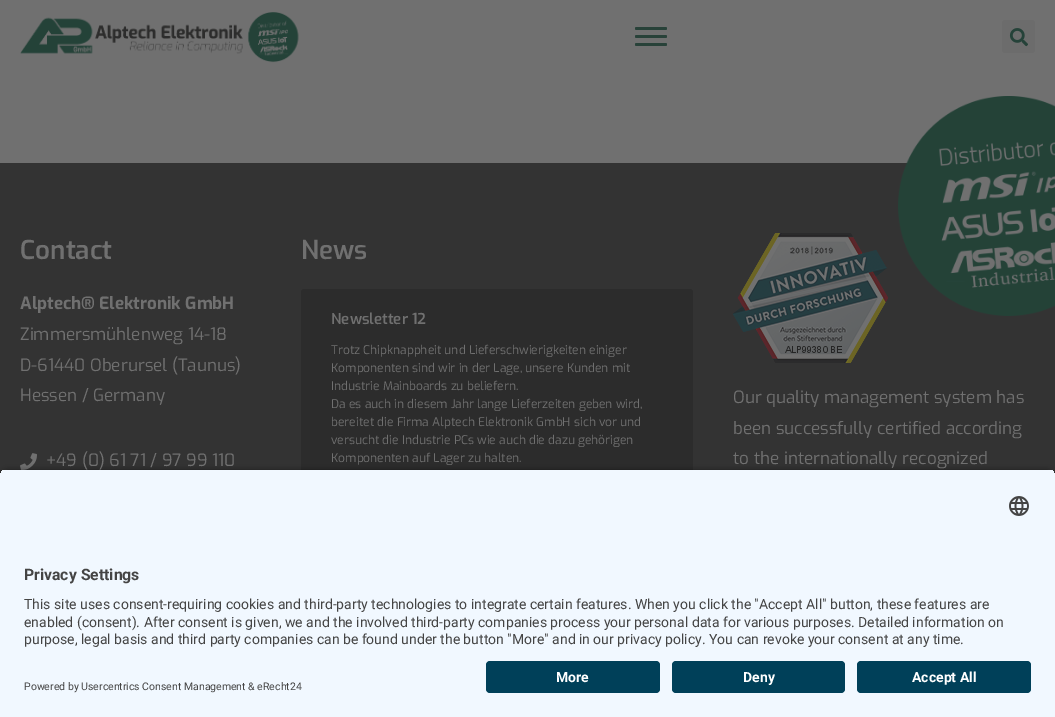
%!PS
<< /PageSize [1055 717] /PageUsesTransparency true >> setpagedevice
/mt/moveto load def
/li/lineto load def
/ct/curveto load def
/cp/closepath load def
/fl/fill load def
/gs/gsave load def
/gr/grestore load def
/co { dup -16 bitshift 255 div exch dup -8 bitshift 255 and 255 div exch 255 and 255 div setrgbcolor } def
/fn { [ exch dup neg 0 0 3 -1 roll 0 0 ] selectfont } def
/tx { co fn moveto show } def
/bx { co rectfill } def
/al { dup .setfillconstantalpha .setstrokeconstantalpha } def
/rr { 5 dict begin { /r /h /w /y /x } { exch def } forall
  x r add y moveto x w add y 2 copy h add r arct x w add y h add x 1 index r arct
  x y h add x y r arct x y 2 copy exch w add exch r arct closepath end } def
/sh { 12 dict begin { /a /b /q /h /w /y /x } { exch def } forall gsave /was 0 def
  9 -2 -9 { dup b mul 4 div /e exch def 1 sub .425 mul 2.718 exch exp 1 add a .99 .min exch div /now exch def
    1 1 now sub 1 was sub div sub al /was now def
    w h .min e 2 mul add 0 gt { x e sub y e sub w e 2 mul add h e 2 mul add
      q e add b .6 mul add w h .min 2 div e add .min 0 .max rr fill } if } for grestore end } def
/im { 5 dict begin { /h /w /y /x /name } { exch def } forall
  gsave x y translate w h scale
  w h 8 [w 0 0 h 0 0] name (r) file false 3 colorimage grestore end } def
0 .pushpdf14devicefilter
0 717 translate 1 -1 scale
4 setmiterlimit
0 0 1055 717 16#707070 bx
(media/1.raw) 20 12 279 51 im
16#284239 co
635 27 32 3 1.5 rr fl
635 35 32 3 1.5 rr fl
635 43 32 3 1.5 rr fl
16#6C6C6C co
1002 20 33 33 3 rr fl
(media/2.raw) 1009 28 19 19 im
0 163 1055 314 16#333333 bx
(media/3.raw) 20 453 17 17 im
16#242424 co
301 289 392 203 3 5 .15 sh
16#2C2C2C co
301 289 392 203 3 rr fl
(media/4.raw) 733 233 155 130 im
(media/5.raw) 898 96 157 220 im
16#000000 co
0 472 1055 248 8 3.5 .8 sh
gs
8 469 mt 1047 469 li 1051.5 469 1055 472.5 1055 477 ct 1055 653 li 0 653 li 0 477 li 0 472.5 3.5 469 8 469 ct cp clip newpath
0 470 1055 183 16#F1F8FF bx
gr
(media/6.raw) 1009 496 20 20 im
0 653 1055 64 16#F1F8FF bx
16#004059 co
486 661 174 32 4 rr fl
672 661 173 32 4 rr fl
857 661 174 32 4 rr fl
(Contact) 20 259 /Exo-SemiBold 26 16#707070 tx
(Alptech® Elektronik GmbH) 20 309 /Exo-Bold 17 16#707070 tx
(Zimmersmühlenweg 14-18) 20 340 /Exo-Regular 17 16#707070 tx
(D-61440 Oberursel \(Taunus\)) 20 371 /Exo-Regular 17 16#707070 tx
(Hessen / Germany) 20 401 /Exo-Regular 17 16#707070 tx
(+49 \(0\) 61 71 / 97 99 110) 46 466 /Exo-Regular 17 16#707070 tx
(News) 301 259 /Exo-SemiBold 26 16#707070 tx
(Newsletter 12) 331 324 /Exo-SemiBold 15 16#707070 tx
(Trotz Chipknappheit und Lieferschwierigkeiten einiger) 331 354 /Exo-Regular 12 16#707070 tx
(Komponenten sind wir in der Lage, unsere Kunden mit) 331 372 /Exo-Regular 12 16#707070 tx
(Industrie Mainboards zu beliefern.) 331 390 /Exo-Regular 12 16#707070 tx
(Da es auch in diesem Jahr lange Lieferzeiten geben wird,) 331 408 /Exo-Regular 12 16#707070 tx
(bereitet die Firma Alptech Elektronik GmbH sich vor und) 331 426 /Exo-Regular 12 16#707070 tx
(versucht die Industrie PCs wie auch die dazu gehörigen) 331 444 /Exo-Regular 12 16#707070 tx
(Komponenten auf Lager zu halten.) 331 462 /Exo-Regular 12 16#707070 tx
(Our quality management system has) 733 403 /Exo-Regular 17 16#707070 tx
(been successfully certified according) 733 434 /Exo-Regular 17 16#707070 tx
(to the internationally recognized) 733 464 /Exo-Regular 17 16#707070 tx
(Privacy Settings) 24 580 /Roboto-Bold 15.75 16#444444 tx
(This site uses consent-requiring cookies and third-party technologies to integrate certain features. When you click the "Accept All" button, these features are) 24 609 /Roboto-Regular 14 16#444444 tx
(enabled \(consent\). After consent is given, we and the involved third-party companies process your personal data for various purposes. Detailed information on) 24 627 /Roboto-Regular 14 16#444444 tx
(purpose, legal basis and third party companies can be found under the button "More" and in our privacy policy. You can revoke your consent at any time.) 24 644 /Roboto-Regular 14 16#444444 tx
(More) 556 682 /Roboto-Bold 14 16#FFFFFF tx
(Deny) 743 682 /Roboto-Bold 14 16#FFFFFF tx
(Accept All) 912 682 /Roboto-Bold 14 16#FFFFFF tx
(Powered by Usercentrics Consent Management & eRecht24) 24 690 /Roboto-Regular 10.5 16#444444 tx
.poppdf14devicefilter showpage
